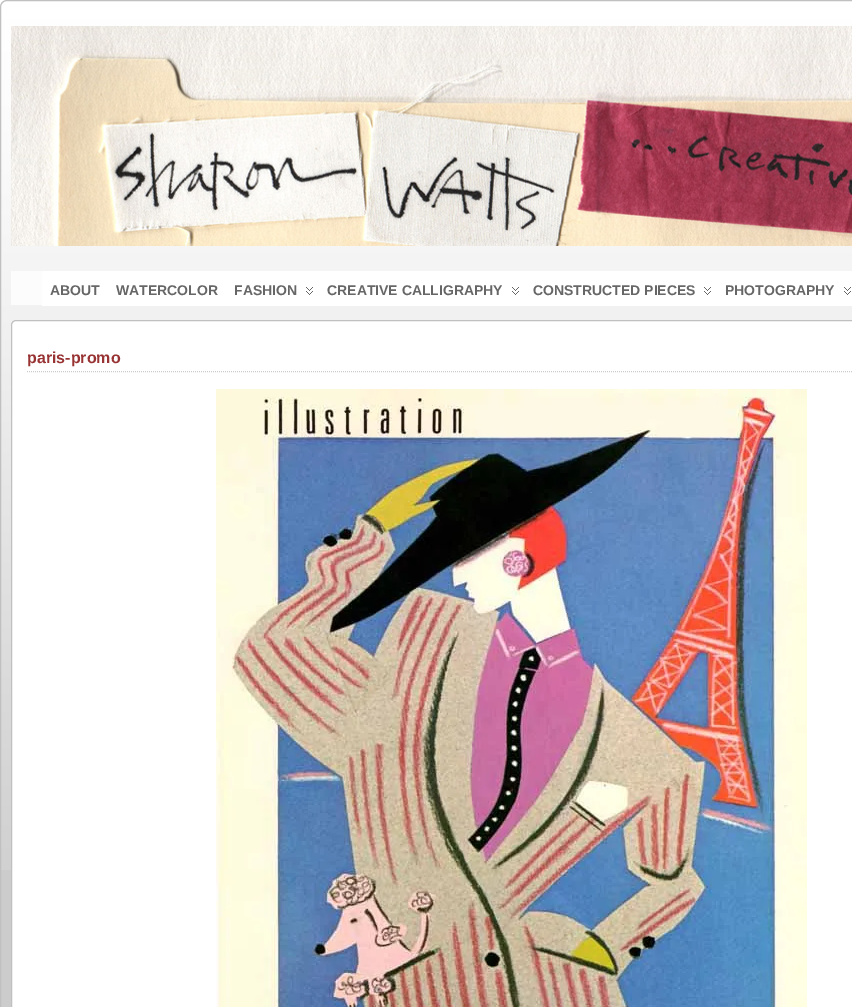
%!PS
<< /PageSize [852 1007] >> setpagedevice
/mt/moveto load def
/li/lineto load def
/fl/fill load def
/st/stroke load def
/gs/gsave load def
/gr/grestore load def
/co { dup -16 bitshift 255 div exch dup -8 bitshift 255 and 255 div exch 255 and 255 div setrgbcolor } def
/fn { [ exch dup neg 0 0 3 -1 roll 0 0 ] selectfont } def
/tx { co fn moveto show } def
/bx { co rectfill } def
/rr { 5 dict begin { /r /h /w /y /x } { exch def } forall
  x r add y moveto x w add y 2 copy h add r arct x w add y h add x 1 index r arct
  x y h add x y r arct x y 2 copy exch w add exch r arct closepath end } def
/im { 5 dict begin { /h /w /y /x /name } { exch def } forall
  gsave x y translate w h scale
  w h 8 [w 0 0 h 0 0] name (r) file false 3 colorimage grestore end } def
0 1007 translate 1 -1 scale
4 setmiterlimit
0 0 852 1007 16#CCCCCC bx
(media/1.raw) 0 0 852 870 im
16#C0C0C0 co
.5 .5 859 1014 6.5 rr st
(media/2.raw) 11 26 841 220 im
11 271 31 34 16#FCFCFC bx
42 271 810 35 16#FFFFFF bx
(media/3.raw) 306 287 7 8 im
(media/3.raw) 512 287 7 8 im
(media/3.raw) 704 287 7 8 im
(media/3.raw) 844 287 7 8 im
11.5 320.5 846 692 4.5 rr gs fl gr
16#C0C0C0 co
st
16#CCCCCC co
[1 1] 0 setdash
27 371.5 mt 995 371.5 li st
(media/4.raw) 216 389 591 618 im
(ABOUT) 50 295 /LiberationSans-Bold 14 16#666666 tx
(WATERCOLOR) 116 295 /LiberationSans-Bold 14 16#666666 tx
(FASHION) 234 295 /LiberationSans-Bold 14 16#666666 tx
(CREATIVE CALLIGRAPHY) 327 295 /LiberationSans-Bold 14 16#666666 tx
(CONSTRUCTED PIECES) 533 295 /LiberationSans-Bold 14 16#666666 tx
(PHOTOGRAPHY) 725 295 /LiberationSans-Bold 14 16#666666 tx
(paris-promo) 27 363 /LiberationSans-Bold 16 16#993333 tx
showpage
